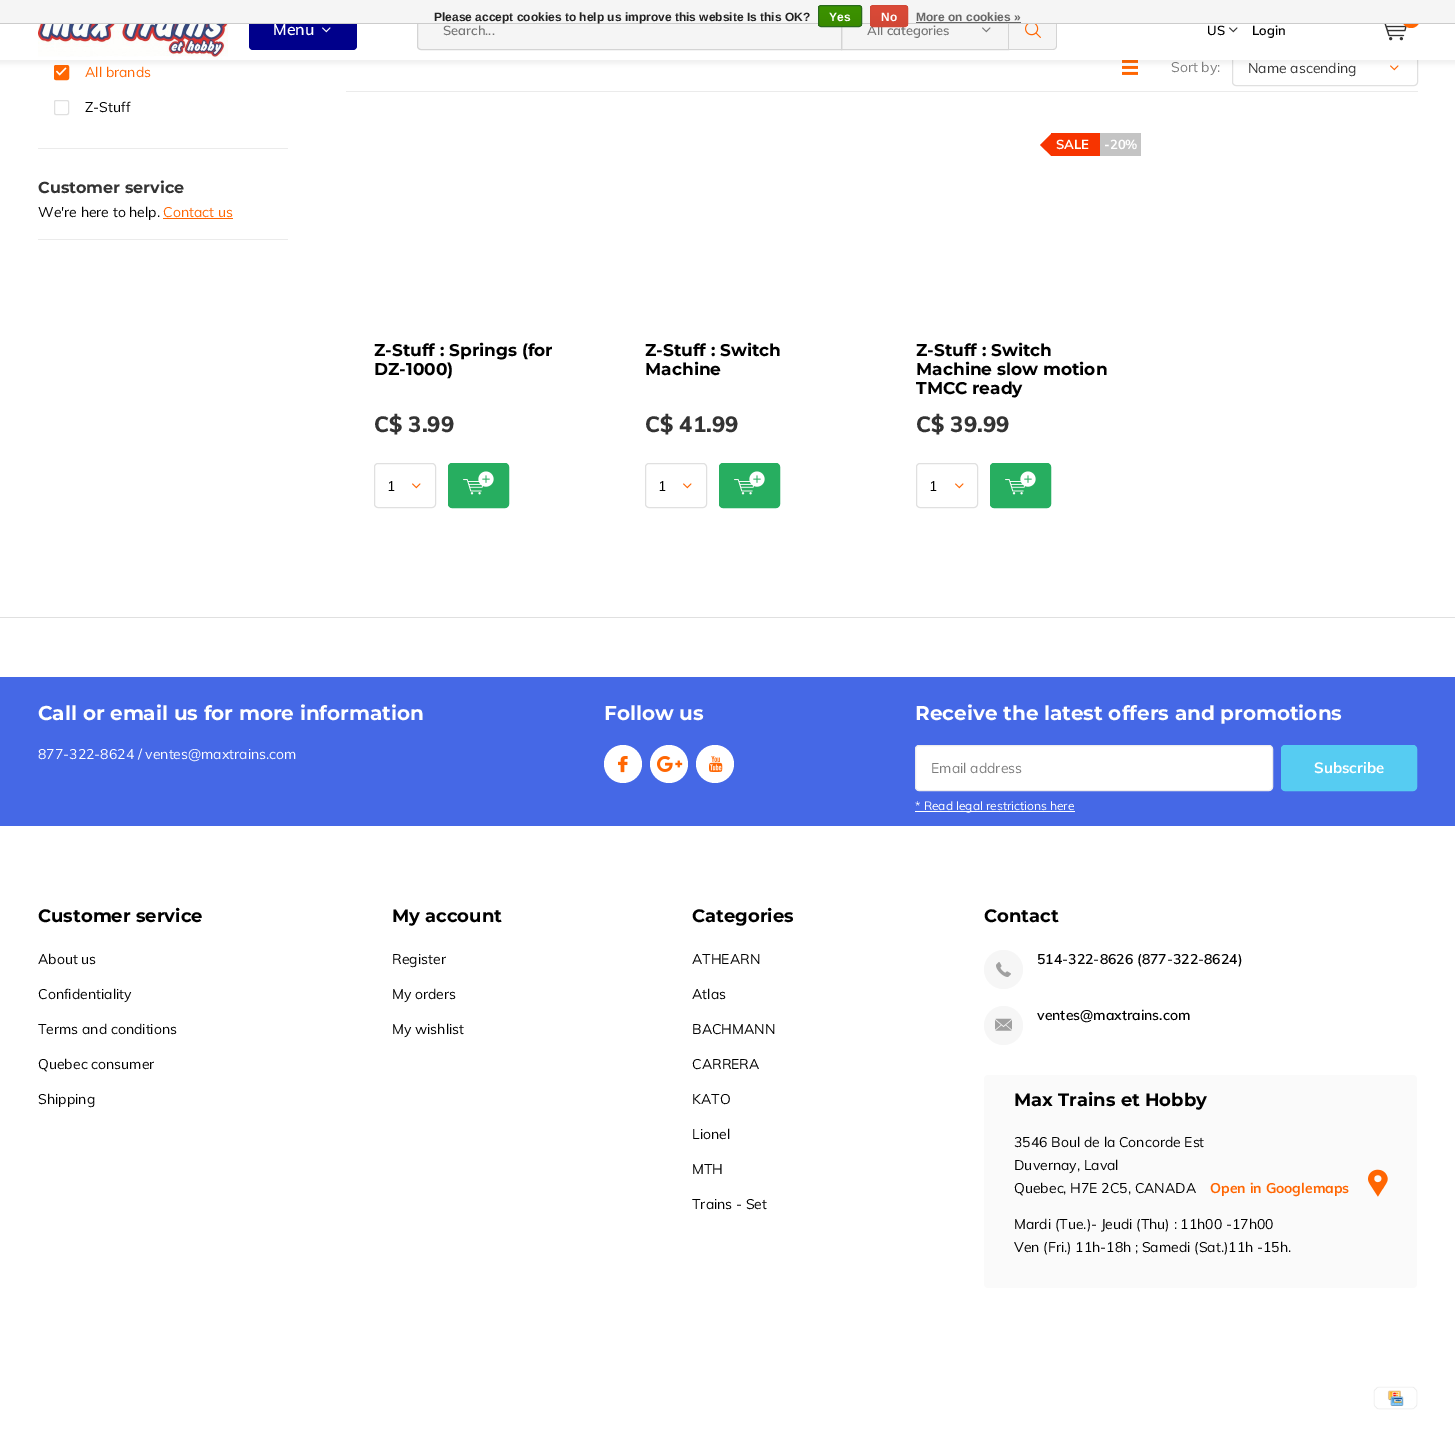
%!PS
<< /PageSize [1455 1447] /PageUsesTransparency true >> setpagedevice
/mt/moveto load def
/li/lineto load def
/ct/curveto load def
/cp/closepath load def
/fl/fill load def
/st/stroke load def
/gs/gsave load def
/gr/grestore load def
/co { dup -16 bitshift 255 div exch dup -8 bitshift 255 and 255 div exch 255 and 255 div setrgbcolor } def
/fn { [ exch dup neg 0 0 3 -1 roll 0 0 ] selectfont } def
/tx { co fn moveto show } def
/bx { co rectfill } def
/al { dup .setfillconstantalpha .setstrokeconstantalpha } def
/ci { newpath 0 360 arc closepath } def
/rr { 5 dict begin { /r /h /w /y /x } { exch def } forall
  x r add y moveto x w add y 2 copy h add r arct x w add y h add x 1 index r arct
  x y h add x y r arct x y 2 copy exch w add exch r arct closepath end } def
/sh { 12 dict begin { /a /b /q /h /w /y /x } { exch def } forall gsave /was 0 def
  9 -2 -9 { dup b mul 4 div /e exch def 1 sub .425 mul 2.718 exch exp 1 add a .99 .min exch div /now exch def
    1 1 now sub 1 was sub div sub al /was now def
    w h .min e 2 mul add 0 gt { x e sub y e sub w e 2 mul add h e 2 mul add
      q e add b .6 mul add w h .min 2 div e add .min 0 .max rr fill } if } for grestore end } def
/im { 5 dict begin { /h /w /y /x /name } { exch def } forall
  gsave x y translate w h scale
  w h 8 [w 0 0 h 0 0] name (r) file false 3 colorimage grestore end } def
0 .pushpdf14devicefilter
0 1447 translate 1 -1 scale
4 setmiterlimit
0 0 1455 1447 16#FFFFFF bx
16#FF6602 co
54.5 65.5 14 14 1.5 rr gs fl gr
st
(media/7.raw) 56 67 11 9 im
(media/8.raw) 1122 60 16 15 im
(media/9.raw) 1390 65 9 6 im
16#E0E0E0 co
1232.5 49.5 185 36 3.5 rr st
16#000000 co
-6 4 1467 60 0 2 .05 sh
0 24 1455 36 16#FFFFFF bx
16#00008B co
249 10 108 40 4 rr fl
842 24 166 25 16#F5F5F5 bx
16#D4D4D4 co
841.5 10.5 167 39 rectstroke
16#F5F5F5 co
421 10.5 mt 841.5 10.5 li 841.5 49.5 li 421 49.5 li 419 49.5 417.5 48 417.5 46 ct 417.5 14 li 417.5 12 419 10.5 421 10.5 ct cp gs fl gr
16#D4D4D4 co
st
16#F5F5F5 co
1009 10 mt 1053 10 li 1055 10 1057 12 1057 14 ct 1057 46 li 1057 48 1055 50 1053 50 ct 1009 50 li cp fl
16#D4D4D4 co
1009 10 mt 1053 10 li 1055 10 1057 12 1057 14 ct 1057 46 li 1057 48 1055 50 1053 50 ct 1009 50 li cp 1009 11 mt 1053 11 li 1055 11 1056 12 1056 14 ct 1056 46 li 1056 48 1055 49 1053 49 ct 1009 49 li cp eofill
(media/6.raw) 1384 24 23 17 im
16#FF6602 co
1411 19 9 ci fl
0 0 1455 23 16#F5F5F5 bx
916 22 105 1 16#666666 bx
(media/1.raw) 38 24 190 36 im
(media/2.raw) 322 27 9 6 im
(media/3.raw) 982 27 9 6 im
(media/4.raw) 1025 24 16 14 im
(media/5.raw) 1229 27 9 6 im
38 148 250 1 16#EBEBEB bx
16#E0E0E0 co
54.5 100.5 14 14 1.5 rr st
38 239 250 1 16#EBEBEB bx
163 218 70 1 16#FF6602 bx
346 91 1072 1 16#EBEBEB bx
(media/9.raw) 412 483 9 6 im
16#E0E0E0 co
374.5 463.5 61 44 3.5 rr st
16#27AE60 co
448.5 463.5 60 44 3.5 rr gs fl gr
st
(media/10.raw) 463 471 31 24 im
(media/9.raw) 683 483 9 6 im
16#E0E0E0 co
645.5 463.5 61 44 3.5 rr st
16#27AE60 co
719.5 463.5 60 44 3.5 rr gs fl gr
st
(media/10.raw) 734 471 31 24 im
1051 133 49 23 16#F73400 bx
1040 145 mt 1051.5 133.5 li 1062.5 145 li 1051.5 156 li cp fl
1100 133 41 23 16#C4C4C4 bx
(media/9.raw) 955 483 9 6 im
16#E0E0E0 co
916.5 463.5 61 44 3.5 rr st
16#27AE60 co
990.5 463.5 60 44 3.5 rr gs fl gr
st
(media/10.raw) 1005 471 31 24 im
0 617 1455 1 16#E0E0E0 bx
0 677 1455 149 16#4568E6 bx
16#FFFFFF co
623 764 19 ci fl
(media/11.raw) 618 756 10 17 im
669 764 19 ci fl
(media/12.raw) 657 756 26 16 im
715 764 19 ci fl
(media/13.raw) 709 756 14 16 im
915.5 745.5 357 45 3.5 rr gs fl gr
16#EDEDED co
st
16#56CCF2 co
1281.5 745.5 135 45 3.5 rr gs fl gr
st
915 811 160 1 16#FFFFFF bx
16#F6F6F6 co
1003.5 969.5 19.5 ci fl
(media/14.raw) 996 962 15 15 im
1003.5 1025.5 19.5 ci fl
(media/15.raw) 995 1018 17 13 im
16#FAFAFA co
984 1075 433 213 4 rr fl
(media/16.raw) 1368 1169 20 28 im
(media/17.raw) 1373 1386 45 24 im
(More on cookies ») 916 21 /LiberationSans-Bold 12 16#666666 tx
(Menu) 273 35 /Muli-SemiBold 16 16#FFFFFF tx
0 23 1455 1 16#CCCCCC bx
gs
818 5 44 22 3 rr clip newpath
gs 818 6 mt 862 6 li 862 26 li 818 26 li cp clip newpath
<< /ShadingType 2 /ColorSpace /DeviceRGB /Coords [840 6 840 26] /Extend [true true] /Function << /FunctionType 2 /Domain [0 1] /C0 [.235 .576 0] /C1 [.224 .541 0] /N 1 >> >> shfill gr
gr
16#29691D co
818.5 5.5 43 21 2.5 rr st
(Yes) 829 21 /LiberationSans-Bold 12 16#FFFFFF tx
(Please accept cookies to help us improve this website Is this OK?) 434 21 /LiberationSans-Bold 12 16#222222 tx
(Search...) 443 35 /Muli-SemiBold 13 16#757575 tx
(All categories) 867 35 /Muli-SemiBold 13 16#757575 tx
gs
870 5 38 22 3 rr clip newpath
gs 870 6 mt 908 6 li 908 26 li 870 26 li cp clip newpath
<< /ShadingType 2 /ColorSpace /DeviceRGB /Coords [889 6 889 26] /Extend [true true] /Function << /FunctionType 2 /Domain [0 1] /C0 [.863 .29 .22] /C1 [.82 .282 .212] /N 1 >> >> shfill gr
gr
16#D14836 co
870.5 5.5 37 21 2.5 rr st
(No) 881 21 /LiberationSans-Bold 12 16#FFFFFF tx
(US) 1207 35 /Muli-SemiBold 13 16#000000 tx
(Login) 1252 35 /Muli-SemiBold 13 16#000000 tx
(All brands) 85 77 /Muli-Regular 14 16#FF6602 tx
(Z-Stuff) 85 112 /Muli-Regular 14 16#000000 tx
(Customer service) 38 193 /Montserrat-Bold 16 16#333333 tx
(We're here to help.) 38 217 /Muli-Regular 14 16#000000 tx
(Contact us) 163 217 /Muli-Regular 14 16#FF6602 tx
(Sort by:) 1171 72 /Muli-Regular 14 16#7D7D7D tx
(Name ascending) 1248 73 /Muli-Regular 14 16#333333 tx
(Z-Stuff : Springs \(for) 374 356 /Montserrat-Bold 17 16#000000 tx
(DZ-1000\)) 374 375 /Montserrat-Bold 17 16#000000 tx
(C$ 3.99) 374 432 /Muli-ExtraBold 22 16#333333 tx
(1) 387 491 /Muli-Regular 14 16#000000 tx
(Z-Stuff : Switch) 645 356 /Montserrat-Bold 17 16#000000 tx
(Machine) 645 375 /Montserrat-Bold 17 16#000000 tx
(C$ 41.99) 645 432 /Muli-ExtraBold 22 16#333333 tx
(1) 658 491 /Muli-Regular 14 16#000000 tx
(SALE) 1056 149 /Muli-Bold 13 16#FFFFFF tx
(-20%) 1104 149 /Muli-Bold 13 16#FFFFFF tx
(Z-Stuff : Switch) 916 356 /Montserrat-Bold 17 16#000000 tx
(Machine slow motion) 916 375 /Montserrat-Bold 17 16#000000 tx
(TMCC ready) 916 394 /Montserrat-Bold 17 16#000000 tx
(C$ 39.99) 916 432 /Muli-ExtraBold 22 16#333333 tx
(1) 929 491 /Muli-Regular 14 16#000000 tx
(Call or email us for more information) 38 720 /Montserrat-Bold 20 16#FFFFFF tx
(877-322-8624 / ventes@maxtrains.com) 38 759 /Muli-Regular 14 16#FFFFFF tx
(Follow us) 604 720 /Montserrat-Bold 20 16#FFFFFF tx
(Receive the latest offers and promotions) 915 720 /Montserrat-Bold 20 16#FFFFFF tx
(Email address) 931 773 /Muli-Regular 14 16#7D7D7D tx
(Subscribe) 1314 773 /Muli-Bold 15 16#FFFFFF tx
(* Read legal restrictions here) 915 810 /Muli-Regular 12 16#FFFFFF tx
(Customer service) 38 922 /Montserrat-Bold 18 16#000000 tx
(About us) 38 964 /Muli-Regular 14 16#000000 tx
(Confidentiality) 38 999 /Muli-Regular 14 16#000000 tx
(Terms and conditions) 38 1034 /Muli-Regular 14 16#000000 tx
(Quebec consumer) 38 1069 /Muli-Regular 14 16#000000 tx
(Shipping) 38 1104 /Muli-Regular 14 16#000000 tx
(My account) 392 922 /Montserrat-Bold 18 16#000000 tx
(Register) 392 964 /Muli-Regular 14 16#000000 tx
(My orders) 392 999 /Muli-Regular 14 16#000000 tx
(My wishlist) 392 1034 /Muli-Regular 14 16#000000 tx
(Categories) 692 922 /Montserrat-Bold 18 16#000000 tx
(ATHEARN) 692 964 /Muli-Regular 14 16#000000 tx
(Atlas) 692 999 /Muli-Regular 14 16#000000 tx
(BACHMANN) 692 1034 /Muli-Regular 14 16#000000 tx
(CARRERA) 692 1069 /Muli-Regular 14 16#000000 tx
(KATO) 692 1104 /Muli-Regular 14 16#000000 tx
(Lionel) 692 1139 /Muli-Regular 14 16#000000 tx
(MTH) 692 1174 /Muli-Regular 14 16#000000 tx
(Trains - Set) 692 1209 /Muli-Regular 14 16#000000 tx
(Contact) 984 922 /Montserrat-Bold 18 16#000000 tx
(514-322-8626 \(877-322-8624\)) 1037 964 /Muli-SemiBold 14 16#000000 tx
(ventes@maxtrains.com) 1037 1020 /Muli-SemiBold 14 16#000000 tx
(Max Trains et Hobby) 1014 1106 /Montserrat-Bold 18 16#000000 tx
(3546 Boul de la Concorde Est) 1014 1147 /Muli-Regular 14 16#000000 tx
(Duvernay, Laval) 1014 1170 /Muli-Regular 14 16#000000 tx
(Quebec, H7E 2C5, CANADA) 1014 1193 /Muli-Regular 14 16#000000 tx
(Open in Googlemaps) 1210 1193 /Muli-Bold 14 16#FF6602 tx
(Mardi \(Tue.\)- Jeudi \(Thu\) : 11h00 -17h00) 1014 1229 /Muli-Regular 14 16#000000 tx
(Ven \(Fri.\) 11h-18h ; Samedi \(Sat.\)11h -15h.) 1014 1252 /Muli-Regular 14 16#000000 tx
.poppdf14devicefilter showpage
